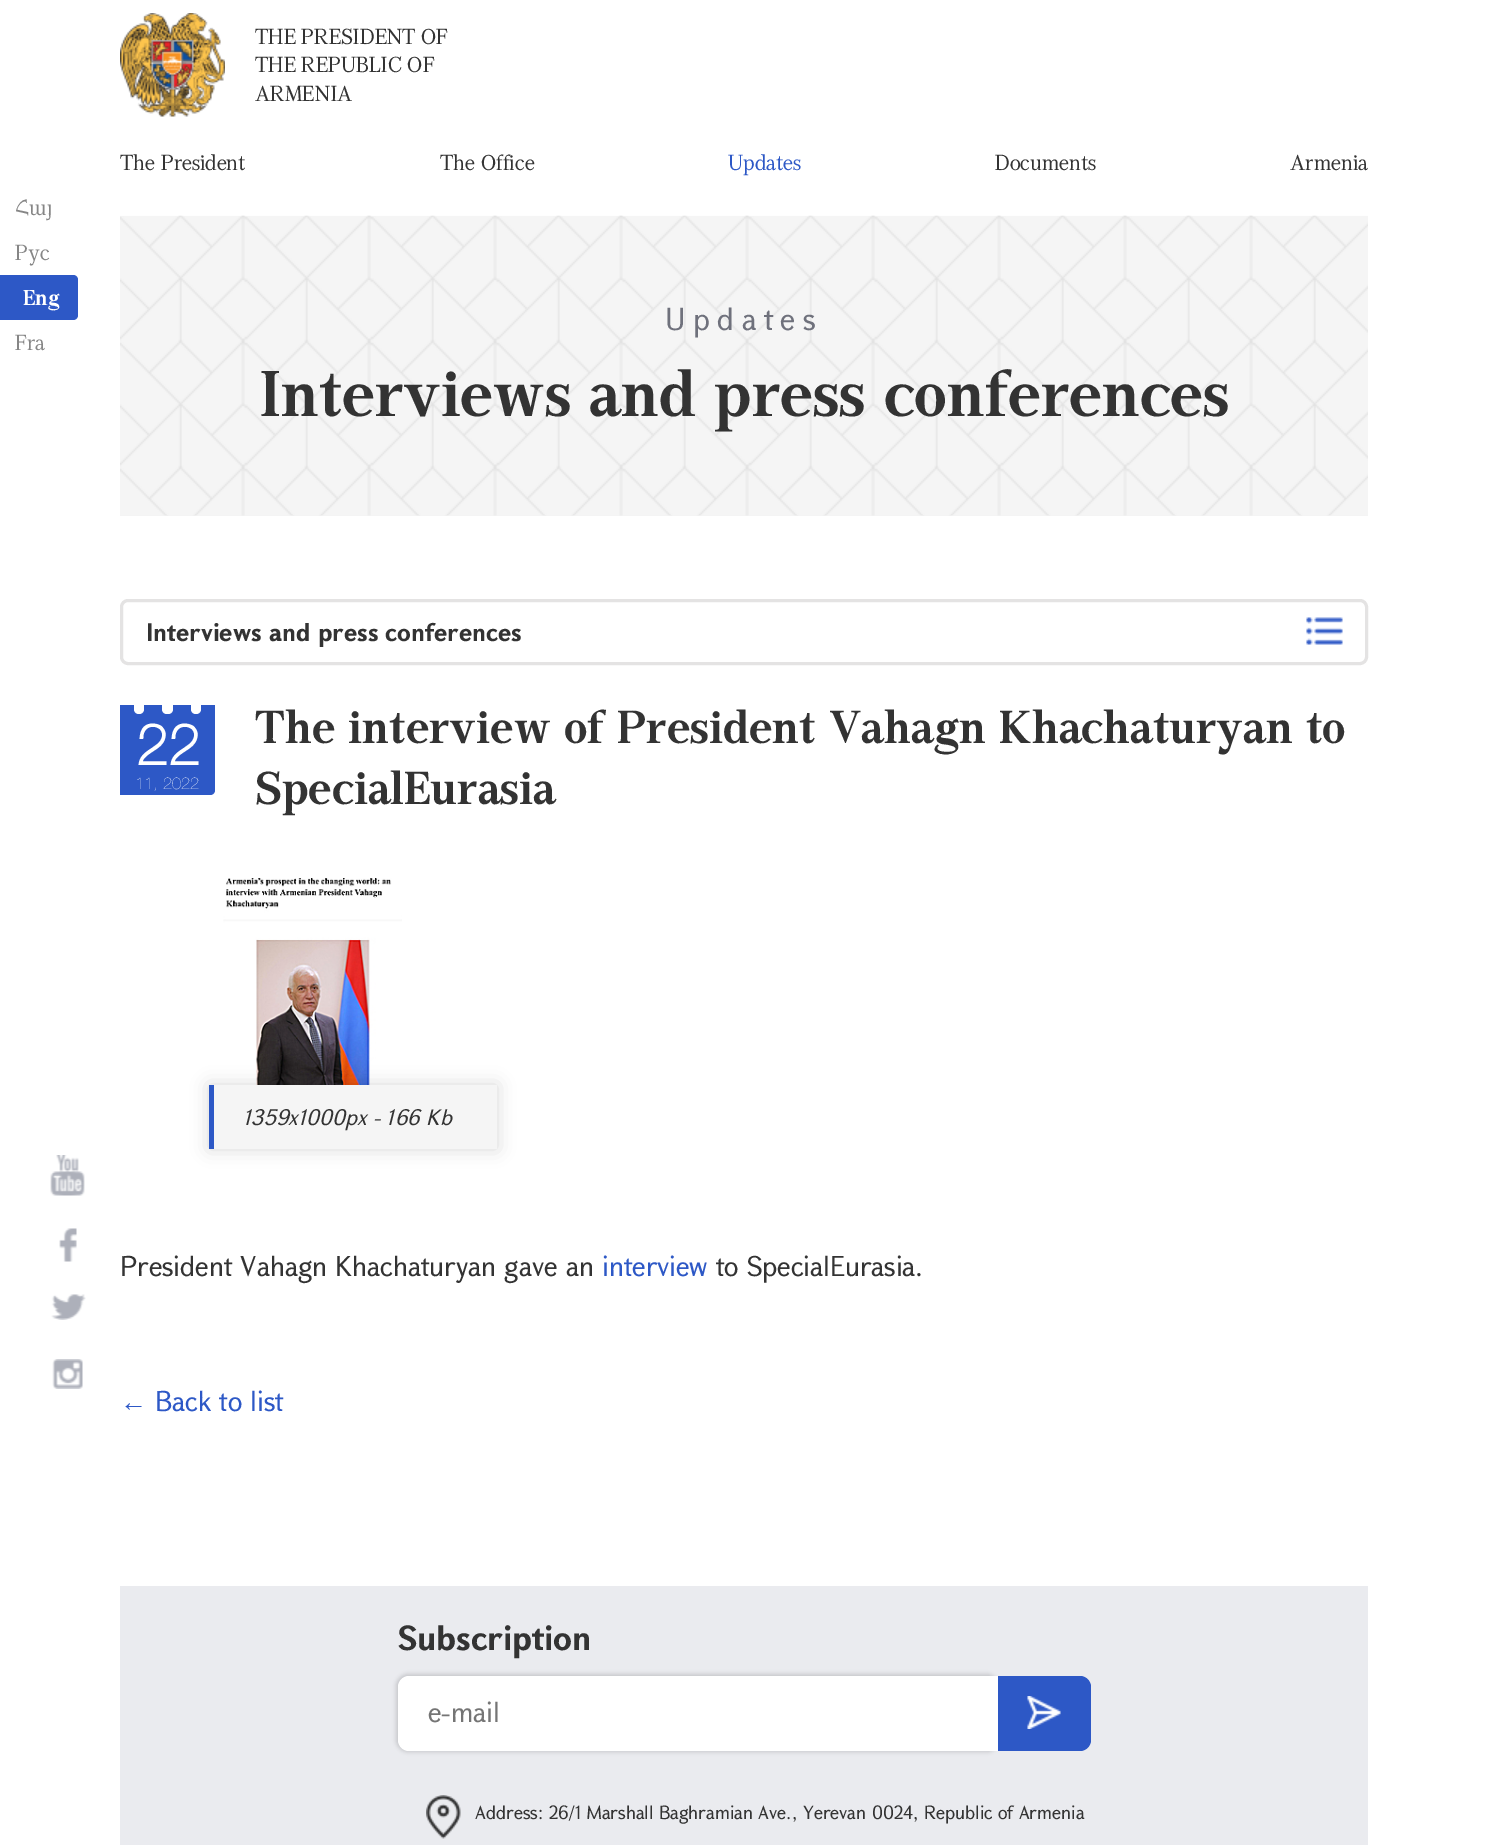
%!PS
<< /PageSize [1487 1845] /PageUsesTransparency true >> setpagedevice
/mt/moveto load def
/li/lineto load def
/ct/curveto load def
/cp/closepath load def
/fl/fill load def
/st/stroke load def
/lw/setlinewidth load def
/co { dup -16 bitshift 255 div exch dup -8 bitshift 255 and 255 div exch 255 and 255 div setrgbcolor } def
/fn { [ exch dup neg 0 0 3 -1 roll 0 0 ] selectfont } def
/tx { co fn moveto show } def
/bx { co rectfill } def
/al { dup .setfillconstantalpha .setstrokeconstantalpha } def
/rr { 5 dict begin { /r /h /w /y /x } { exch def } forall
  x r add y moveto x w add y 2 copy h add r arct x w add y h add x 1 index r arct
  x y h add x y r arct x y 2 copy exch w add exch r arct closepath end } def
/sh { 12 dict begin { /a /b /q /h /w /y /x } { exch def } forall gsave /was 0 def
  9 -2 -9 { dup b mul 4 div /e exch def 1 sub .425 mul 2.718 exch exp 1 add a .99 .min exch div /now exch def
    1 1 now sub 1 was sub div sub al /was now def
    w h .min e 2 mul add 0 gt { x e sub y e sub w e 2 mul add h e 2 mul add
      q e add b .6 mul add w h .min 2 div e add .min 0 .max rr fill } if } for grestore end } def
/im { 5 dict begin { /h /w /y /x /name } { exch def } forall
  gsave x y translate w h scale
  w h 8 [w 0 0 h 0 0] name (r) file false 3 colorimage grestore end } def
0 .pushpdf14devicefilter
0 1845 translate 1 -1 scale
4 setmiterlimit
0 0 1487 1845 16#FFFFFF bx
(media/1.raw) 120 13 105 104 im
16#2D58C6 co
0 275 mt 73 275 li 76 275 78 277 78 280 ct 78 315 li 78 318 76 320 73 320 ct 0 320 li cp fl
120 216 1248 300 16#F5F5F5 bx
(media/2.raw) 120 215 1248 301 im
16#E4E3E3 co
3 lw
121.5 600.5 1245 63 6.5 rr st
(media/3.raw) 1306 617 37 28 im
16#2D58C6 co
120 705 mt 215 705 li 215 790 li 215 793 213 795 210 795 ct 120 795 li cp fl
16#FFFFFF co
134 705 mt 144 705 li 144 709 li 144 712 142 714 139 714 ct 136 714 134 712 134 709 ct cp fl
162 705 mt 173 705 li 173 709 li 173 712 171 714 168 714 ct 167 714 li 164 714 162 712 162 709 ct cp fl
191 705 mt 201 705 li 201 709 li 201 712 199 714 196 714 ct 193 714 191 712 191 709 ct cp fl
(media/4.raw) 223 878 179 207 im
16#000000 co
209 1085 288 64 0 9 .15 sh
214 1085 283 64 16#F5F5F5 bx
209 1085 5 64 16#2D58C6 bx
(media/5.raw) 50 1155 35 41 im
(media/6.raw) 59 1228 18 34 im
(media/7.raw) 51 1294 35 26 im
(media/8.raw) 52 1359 31 30 im
120 1586 1248 259 16#EAEBEF bx
16#000000 co
396 1674 603 78 12 2 .15 sh
16#FFFFFF co
409 1676 mt 998 1676 li 998 1751 li 409 1751 li 403 1751 398 1746 398 1740 ct 398 1687 li 398 1681 403 1676 409 1676 ct cp fl
16#2D58C6 co
998 1676 mt 1080 1676 li 1086 1676 1091 1681 1091 1687 ct 1091 1740 li 1091 1746 1086 1751 1080 1751 ct 998 1751 li cp fl
(media/9.raw) 1027 1696 34 33 im
(media/10.raw) 426 1795 35 44 im
(THE PRESIDENT OF) 255 44 /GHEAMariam-Regular 21 16#333333 tx
(THE REPUBLIC OF) 255 72 /GHEAMariam-Regular 21 16#333333 tx
(ARMENIA) 255 101 /GHEAMariam-Regular 21 16#333333 tx
(The President) 120 170 /GHEAMariam-Regular 21 16#333333 tx
(The Office) 440 170 /GHEAMariam-Regular 21 16#333333 tx
(Updates) 728 170 /GHEAMariam-Regular 21 16#2D58C6 tx
(Documents) 995 170 /GHEAMariam-Regular 21 16#333333 tx
(Armenia) 1290 170 /GHEAMariam-Regular 21 16#333333 tx
(Հայ) 15 215 /GHEAMariam-Regular 21 16#868686 tx
(Рус) 15 260 /GHEAMariam-Regular 21 16#868686 tx
(Eng) 23 305 /GHEAMariam-Bold 21 16#FFFFFF tx
(Fra) 15 350 /GHEAMariam-Regular 21 16#868686 tx
/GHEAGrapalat-Regular 30 fn
16#6F717C co
665 330 mt 7.5 0 (Updates) ashow
(Interviews and press conferences) 259 416 /GHEAMariam-Bold 63 16#333333 tx
(Interviews and press conferences) 146 641 /GHEAGrapalat-Bold 24 16#333333 tx
(22) 136 765 /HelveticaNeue-Bold 57 16#FFFFFF tx
(11, 2022) 135 789 /HelveticaNeue-Regular 16.5 16#FFFFFF tx
(The interview of President Vahagn Khachaturyan to) 255 743 /GHEAMariam-Bold 45 16#333333 tx
(SpecialEurasia) 255 804 /GHEAMariam-Bold 45 16#333333 tx
(1359x1000px - 166 Kb) 243 1125 /GHEAGrapalat-Italic 21 16#333333 tx
(President Vahagn Khachaturyan gave an) 120 1276 /GHEAGrapalat-Regular 27 16#333333 tx
(interview) 602 1276 /GHEAGrapalat-Regular 27 16#2D58C6 tx
(to SpecialEurasia.) 716 1276 /GHEAGrapalat-Regular 27 16#333333 tx
(←) 120 1411 /LiberationSans-Regular 27 16#2D58C6 tx
(Back to list) 155 1411 /GHEAGrapalat-Regular 27 16#2D58C6 tx
(Subscription) 398 1650 /GHEAGrapalat-Bold 33 16#333333 tx
(e-mail) 428 1722 /GHEAGrapalat-Regular 27 16#757575 tx
(Address: 26/1 Marshall Baghramian Ave., Yerevan 0024, Republic of Armenia) 475 1819 /GHEAGrapalat-Regular 18 16#333333 tx
.poppdf14devicefilter showpage
